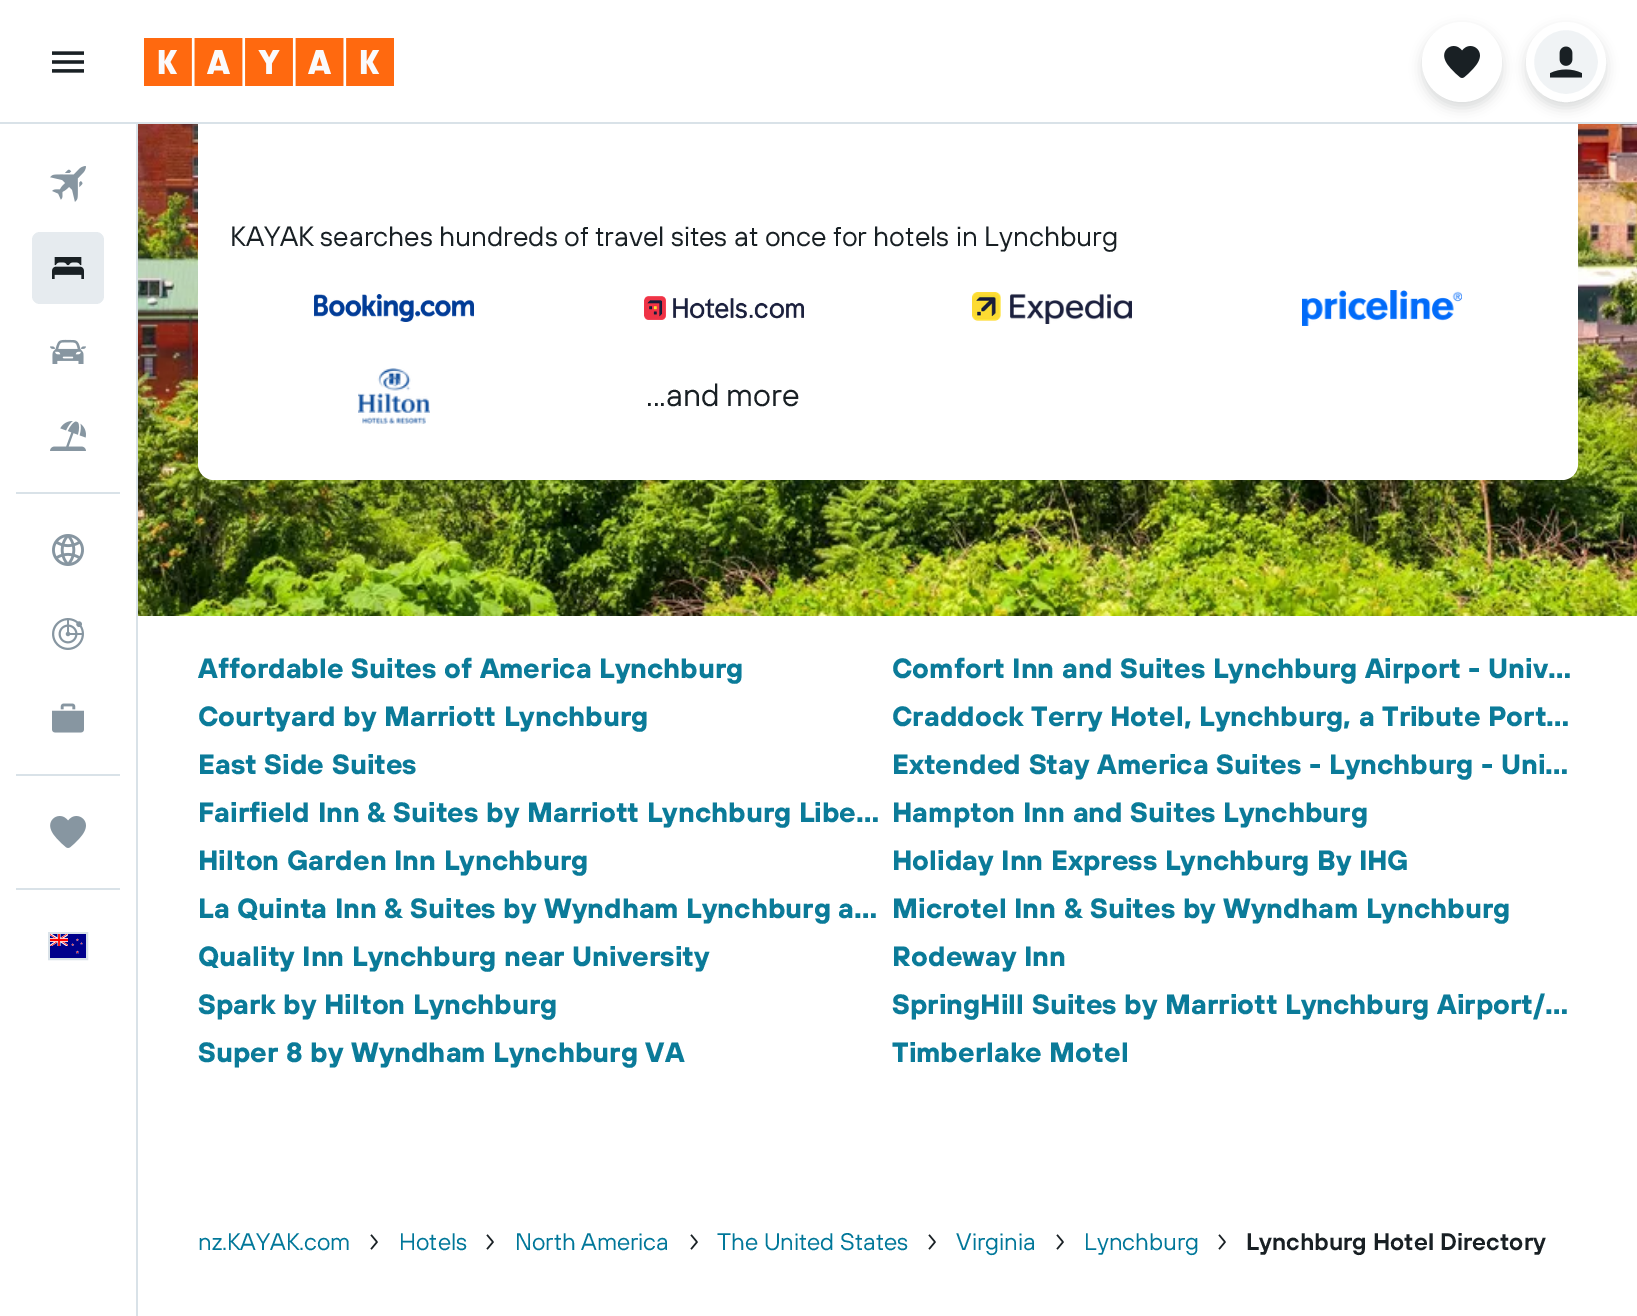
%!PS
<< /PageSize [1637 1316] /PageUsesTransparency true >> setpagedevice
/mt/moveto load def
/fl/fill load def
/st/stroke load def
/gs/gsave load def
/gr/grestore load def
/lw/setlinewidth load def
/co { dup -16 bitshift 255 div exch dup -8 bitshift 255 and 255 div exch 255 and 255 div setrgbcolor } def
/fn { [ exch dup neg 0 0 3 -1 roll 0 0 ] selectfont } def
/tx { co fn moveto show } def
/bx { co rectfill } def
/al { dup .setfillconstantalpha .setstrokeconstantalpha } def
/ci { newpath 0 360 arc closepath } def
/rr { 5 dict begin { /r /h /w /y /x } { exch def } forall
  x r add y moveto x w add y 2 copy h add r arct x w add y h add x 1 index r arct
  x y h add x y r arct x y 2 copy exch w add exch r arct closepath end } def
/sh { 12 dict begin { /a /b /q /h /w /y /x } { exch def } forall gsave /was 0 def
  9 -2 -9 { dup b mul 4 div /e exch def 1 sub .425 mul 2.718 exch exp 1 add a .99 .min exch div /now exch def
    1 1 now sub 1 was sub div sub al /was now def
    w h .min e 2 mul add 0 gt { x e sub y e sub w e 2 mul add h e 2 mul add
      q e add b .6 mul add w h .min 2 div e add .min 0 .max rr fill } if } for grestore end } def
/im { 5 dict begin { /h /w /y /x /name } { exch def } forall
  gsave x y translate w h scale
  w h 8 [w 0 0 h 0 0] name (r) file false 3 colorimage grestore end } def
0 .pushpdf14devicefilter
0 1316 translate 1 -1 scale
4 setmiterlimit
0 0 1637 1316 16#FFFFFF bx
(media/14.raw) 138 124 1499 492 im
198 -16 1380 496 16 rr fl
0 122 1637 2 16#D9E2E8 bx
(media/1.raw) 52 51 32 22 im
(media/2.raw) 144 38 250 48 im
16#192024 co
1422 28 80 80 40 6 .16 sh
16#FFFFFF co
1462 62 40 ci fl
(media/3.raw) 1444 46 36 32 im
16#192024 co
1526 28 80 80 40 6 .16 sh
16#F0F3F5 co
1566 62 36 ci gs fl gr
16#FFFFFF co
8 lw
st
(media/4.raw) 1550 46 32 32 im
136 124 2 1192 16#D9E2E8 bx
(media/5.raw) 50 166 36 36 im
16#E6EBEF co
32 232 72 72 8 rr fl
(media/6.raw) 52 257 32 22 im
(media/7.raw) 50 339 36 25 im
(media/8.raw) 50 421 36 30 im
16 492 104 2 16#D9E2E8 bx
(media/9.raw) 52 534 32 32 im
(media/10.raw) 52 618 32 32 im
(media/11.raw) 52 703 32 30 im
16 774 104 2 16#D9E2E8 bx
(media/12.raw) 50 816 36 32 im
16 888 104 2 16#D9E2E8 bx
2 lw
49 933 38 26 rectstroke
(media/13.raw) 50 934 36 24 im
(media/15.raw) 314 294 160 28 im
(media/16.raw) 644 296 160 24 im
(media/17.raw) 972 292 160 32 im
(media/18.raw) 1302 290 160 36 im
(media/19.raw) 358 368 72 56 im
(media/20.raw) 370 1234 8 16 im
(media/20.raw) 486 1234 8 16 im
(media/20.raw) 690 1234 8 16 im
(media/20.raw) 928 1234 8 16 im
(media/20.raw) 1056 1234 8 16 im
(media/20.raw) 1218 1234 8 16 im
(KAYAK searches hundreds of travel sites at once for hotels in Lynchburg) 230 246 /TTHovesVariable-Regular 28 16#192024 tx
/TTHovesVariable-Regular 32 fn
646 406 mt -1 0 32 (...and more) widthshow
(Affordable Suites of America Lynchburg) 198 678 /TTHovesVariable-Bold 28 16#0B7B99 tx
(Comfort Inn and Suites Lynchburg Airport - Univ…) 892 678 /TTHovesVariable-Bold 28 16#0B7B99 tx
(Courtyard by Marriott Lynchburg) 198 726 /TTHovesVariable-Bold 28 16#0B7B99 tx
(Craddock Terry Hotel, Lynchburg, a Tribute Port…) 892 726 /TTHovesVariable-Bold 28 16#0B7B99 tx
(East Side Suites) 198 774 /TTHovesVariable-Bold 28 16#0B7B99 tx
(Extended Stay America Suites - Lynchburg - Uni…) 892 774 /TTHovesVariable-Bold 28 16#0B7B99 tx
(Fairfield Inn & Suites by Marriott Lynchburg Libe…) 198 822 /TTHovesVariable-Bold 28 16#0B7B99 tx
(Hampton Inn and Suites Lynchburg) 892 822 /TTHovesVariable-Bold 28 16#0B7B99 tx
(Hilton Garden Inn Lynchburg) 198 870 /TTHovesVariable-Bold 28 16#0B7B99 tx
(Holiday Inn Express Lynchburg By IHG) 892 870 /TTHovesVariable-Bold 28 16#0B7B99 tx
(La Quinta Inn & Suites by Wyndham Lynchburg a…) 198 918 /TTHovesVariable-Bold 28 16#0B7B99 tx
(Microtel Inn & Suites by Wyndham Lynchburg) 892 918 /TTHovesVariable-Bold 28 16#0B7B99 tx
(Quality Inn Lynchburg near University) 198 966 /TTHovesVariable-Bold 28 16#0B7B99 tx
(Rodeway Inn) 892 966 /TTHovesVariable-Bold 28 16#0B7B99 tx
(Spark by Hilton Lynchburg) 198 1014 /TTHovesVariable-Bold 28 16#0B7B99 tx
(SpringHill Suites by Marriott Lynchburg Airport/…) 892 1014 /TTHovesVariable-Bold 28 16#0B7B99 tx
(Super 8 by Wyndham Lynchburg VA) 198 1062 /TTHovesVariable-Bold 28 16#0B7B99 tx
(Timberlake Motel) 892 1062 /TTHovesVariable-Bold 28 16#0B7B99 tx
(nz.KAYAK.com) 198 1250 /TTHovesVariable-Regular 24 16#007799 tx
(Hotels) 399 1250 /TTHovesVariable-Regular 24 16#007799 tx
(North America) 515 1250 /TTHovesVariable-Regular 24 16#007799 tx
(The United States) 717 1250 /TTHovesVariable-Regular 24 16#007799 tx
(Virginia) 956 1250 /TTHovesVariable-Regular 24 16#007799 tx
(Lynchburg) 1084 1250 /TTHovesVariable-Regular 24 16#007799 tx
(Lynchburg Hotel Directory) 1246 1250 /TTHovesVariable-SemiBold 24 16#192024 tx
.poppdf14devicefilter showpage
